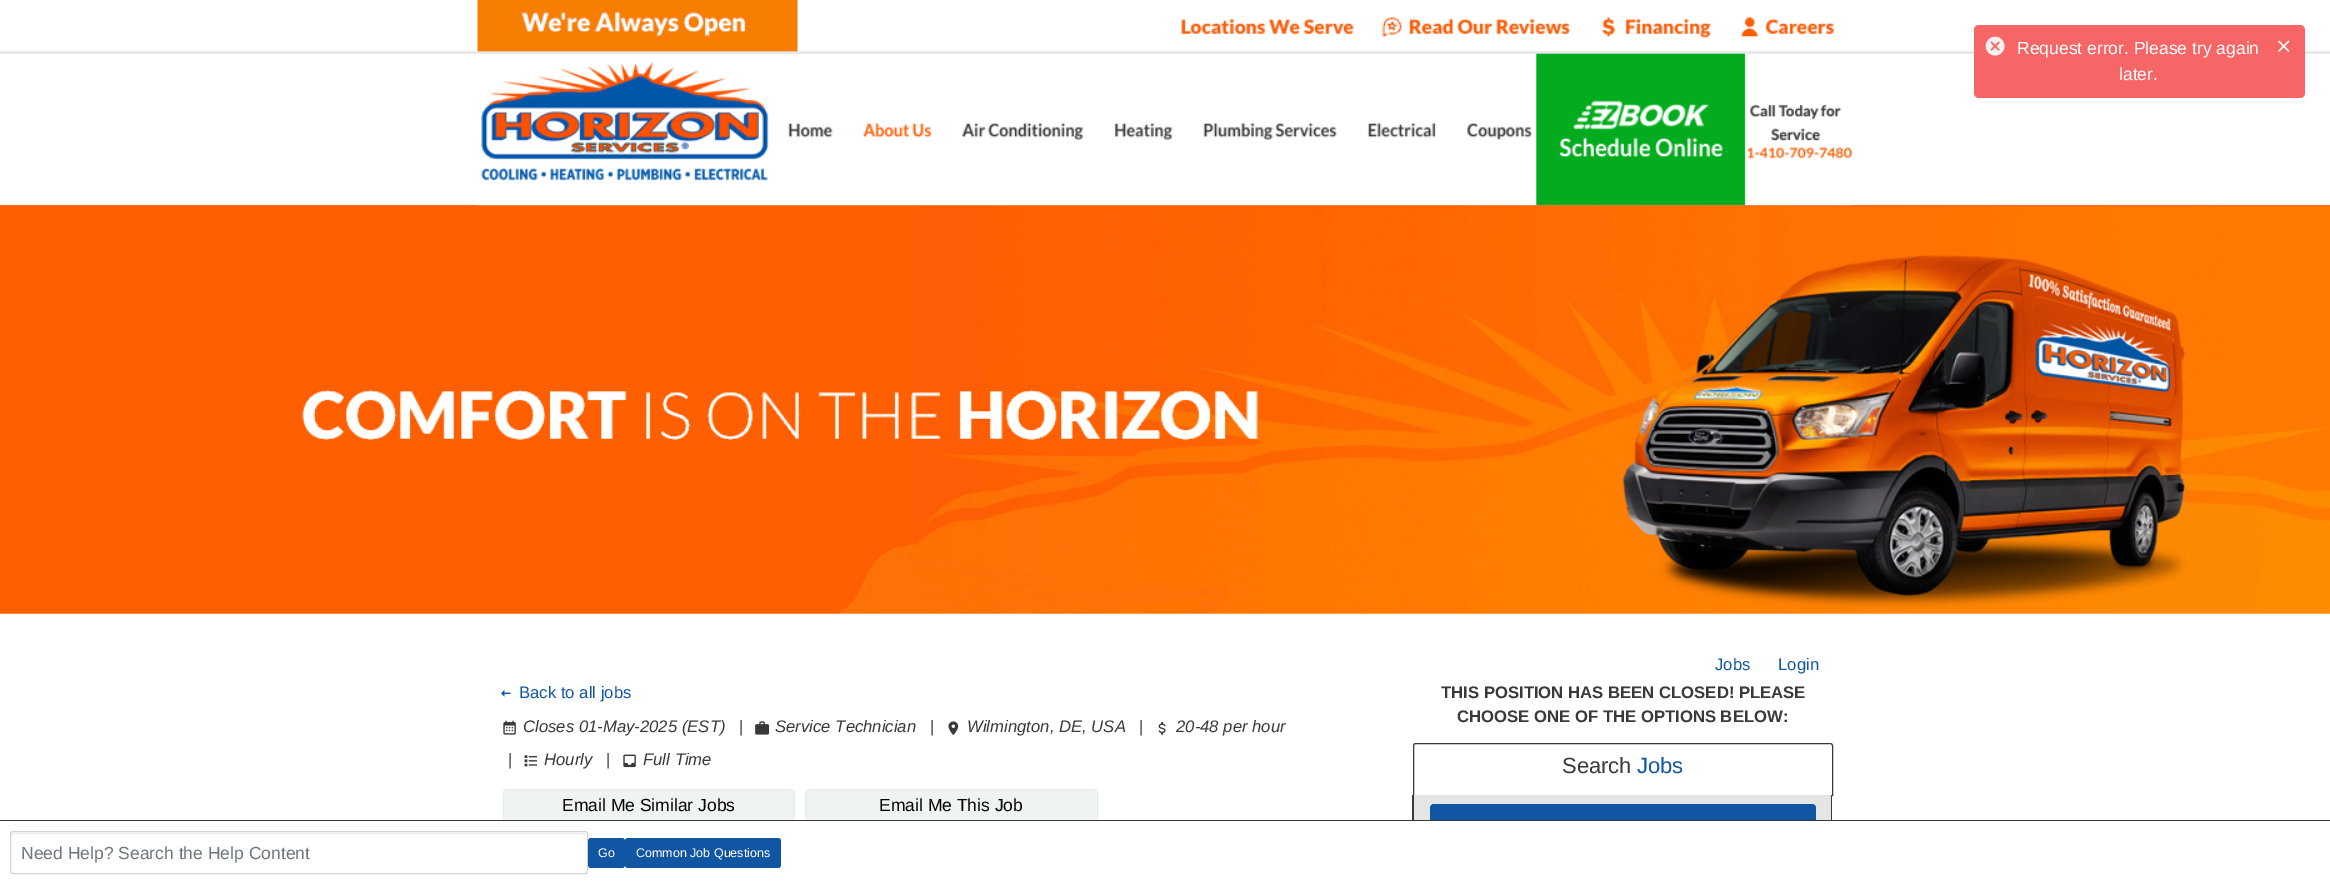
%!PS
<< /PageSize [2330 883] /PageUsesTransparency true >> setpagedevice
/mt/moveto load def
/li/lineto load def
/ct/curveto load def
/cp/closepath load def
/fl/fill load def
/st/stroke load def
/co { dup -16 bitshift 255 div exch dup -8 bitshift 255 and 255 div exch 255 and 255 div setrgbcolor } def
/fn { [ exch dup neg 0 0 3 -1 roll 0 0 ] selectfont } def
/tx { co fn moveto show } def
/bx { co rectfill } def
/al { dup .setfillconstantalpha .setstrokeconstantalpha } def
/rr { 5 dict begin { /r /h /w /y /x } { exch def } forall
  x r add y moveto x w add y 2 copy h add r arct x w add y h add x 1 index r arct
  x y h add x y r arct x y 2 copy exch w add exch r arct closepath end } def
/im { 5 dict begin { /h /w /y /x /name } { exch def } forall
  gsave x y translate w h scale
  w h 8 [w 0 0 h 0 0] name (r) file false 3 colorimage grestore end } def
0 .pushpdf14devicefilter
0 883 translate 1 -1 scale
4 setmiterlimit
0 0 2330 883 16#FFFFFF bx
(media/1.raw) 0 51 2330 563 im
16#F65555 co
1974 25 331 73 5 rr fl
(media/2.raw) 1985 36 20 20 im
0.1 al
16#FFFFFF co
1974 25 331 73 5 rr fl
1 al
(media/3.raw) 2278 40 12 12 im
(media/4.raw) 477 0 1376 206 im
(media/5.raw) 501 690 10 7 im
(media/6.raw) 503 720 13 15 im
(media/7.raw) 755 721 15 14 im
(media/8.raw) 948 721 11 15 im
(media/9.raw) 1158 722 8 13 im
(media/10.raw) 524 755 14 12 im
(media/11.raw) 623 754 13 14 im
16#F0F3F4 co
503 789 292 32 6 rr fl
0.04 al
16#000000 co
503.5 789.5 291 31 rectstroke
1 al
16#F0F3F4 co
805 789 293 32 6 rr fl
0.04 al
16#000000 co
805.5 789.5 292 31 rectstroke
1 al
16#393939 co
1416 743.5 mt 1830 743.5 li 1831.5 743.5 1832.5 744.5 1832.5 746 ct 1832.5 795.5 li 1413.5 795.5 li 1413.5 746 li 1413.5 744.5 1414.5 743.5 1416 743.5 ct cp st
1414 795 417 25 16#E5E5E5 bx
16#393939 co
1412 795 mt 1832 795 li 1832 851 li 1832 852 1831 854 1829 854 ct 1416 854 li 1414 854 1412 852 1412 851 ct cp 1414 795 mt 1831 795 li 1831 851 li 1831 852 1830 852 1829 852 ct 1416 852 li 1415 852 1414 852 1414 851 ct cp eofill
16#1156A2 co
1430 804 386 39 4 rr fl
1412 821 420 33 16#FFFFFF bx
0 820 2330 1 16#393939 bx
16#ECECEC co
13 834 mt 584 834 li 585 834 586 835 586 836 ct 586 835 586 833 584 833 ct 13 833 li 11 834 li 11 836 li 11 835 12 834 13 834 ct cp fl
16#CED4DA co
10.5 831.5 577 42 2.5 rr st
16#1156A2 co
588 838 37 30 3 rr fl
625 838 156 30 3 rr fl
(Request error. Please try again) 2017 54 /LiberationSans-Regular 17.5 16#FFFFFF tx
(later.) 2119 80 /LiberationSans-Regular 17.5 16#FFFFFF tx
(Jobs) 1715 670 /LiberationSans-Regular 16.7 16#1156A2 tx
(Login) 1778 670 /LiberationSans-Regular 16.7 16#1156A2 tx
(Back to all jobs) 519 698 /LiberationSans-Regular 16.7 16#1156A2 tx
(Closes 01-May-2025 \(EST\)) 523 732 /LiberationSans-Italic 16.7 16#393939 tx
(|) 739 732 /LiberationSans-Regular 16.7 16#393939 tx
(Service Technician) 775 732 /LiberationSans-Italic 16.7 16#393939 tx
(|) 930 732 /LiberationSans-Regular 16.7 16#393939 tx
(Wilmington, DE, USA) 967 732 /LiberationSans-Italic 16.7 16#393939 tx
(|) 1139 732 /LiberationSans-Regular 16.7 16#393939 tx
(20-48 per hour) 1176 732 /LiberationSans-Italic 16.7 16#393939 tx
(|) 508 765 /LiberationSans-Regular 16.7 16#393939 tx
(Hourly) 544 765 /LiberationSans-Italic 16.7 16#393939 tx
(|) 606 765 /LiberationSans-Regular 16.7 16#393939 tx
(Full Time) 643 765 /LiberationSans-Italic 16.7 16#393939 tx
(Email Me Similar Jobs) 562 811 /LiberationSans-Regular 17.5 16#000000 tx
(Email Me This Job) 879 811 /LiberationSans-Regular 17.5 16#000000 tx
(THIS POSITION HAS BEEN CLOSED! PLEASE) 1441 698 /LiberationSans-Bold 16.7 16#393939 tx
(CHOOSE ONE OF THE OPTIONS BELOW:) 1457 722 /LiberationSans-Bold 16.7 16#393939 tx
(Search) 1562 773 /LiberationSans-Regular 22 16#393939 tx
(Jobs) 1637 773 /LiberationSans-Regular 22 16#1156A2 tx
(Need Help? Search the Help Content) 21 859 /LiberationSans-Regular 17.5 16#6C757D tx
(Go) 598 857 /LiberationSans-Regular 12.5 16#FFFFFF tx
(Common Job Questions) 636 857 /LiberationSans-Regular 12.5 16#FFFFFF tx
.poppdf14devicefilter showpage
